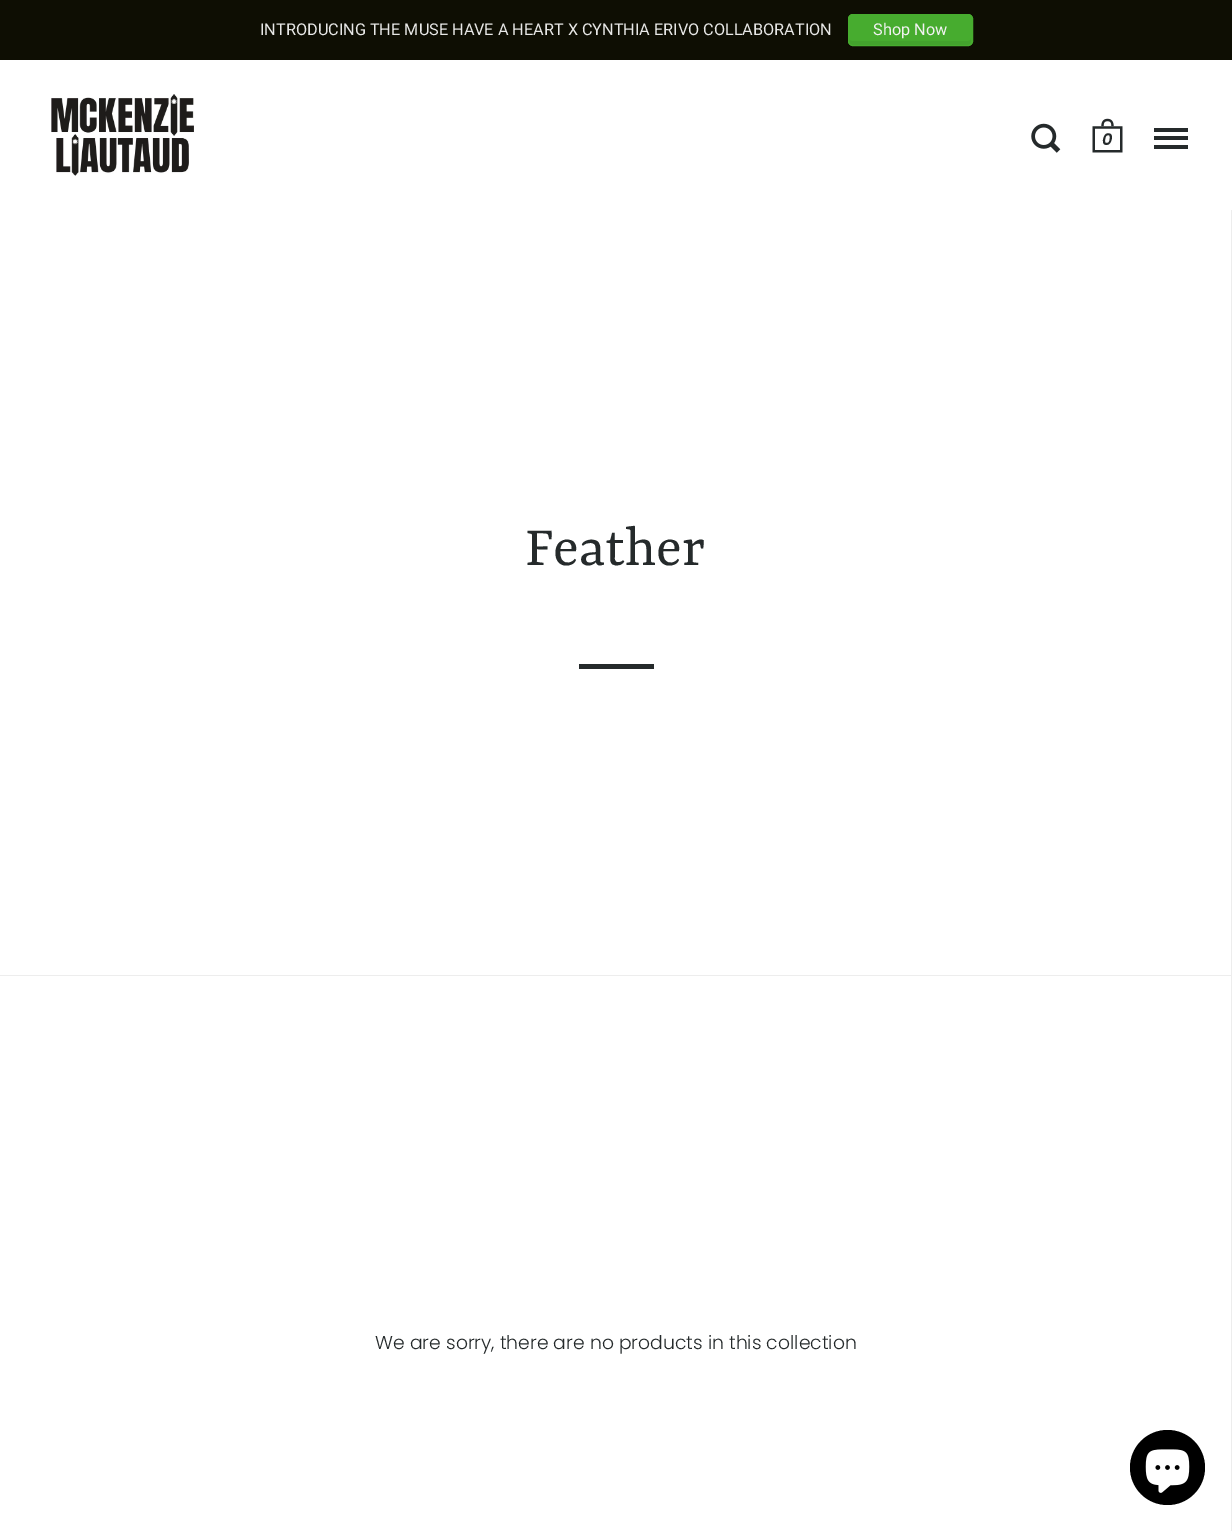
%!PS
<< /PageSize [1232 1531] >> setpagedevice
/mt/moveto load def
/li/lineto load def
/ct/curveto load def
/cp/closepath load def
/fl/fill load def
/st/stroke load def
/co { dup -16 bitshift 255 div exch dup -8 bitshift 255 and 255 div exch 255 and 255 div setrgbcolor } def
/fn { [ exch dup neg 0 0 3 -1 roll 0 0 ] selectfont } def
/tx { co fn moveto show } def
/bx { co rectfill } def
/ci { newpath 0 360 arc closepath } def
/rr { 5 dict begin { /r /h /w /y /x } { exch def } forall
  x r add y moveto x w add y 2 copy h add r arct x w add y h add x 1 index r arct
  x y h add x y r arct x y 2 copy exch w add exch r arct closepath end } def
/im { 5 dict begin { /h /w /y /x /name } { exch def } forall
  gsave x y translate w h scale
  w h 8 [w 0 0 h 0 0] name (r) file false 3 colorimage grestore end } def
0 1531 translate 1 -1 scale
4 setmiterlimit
0 0 1232 1531 16#FFFFFF bx
0 0 1232 60 16#0E0E03 bx
16#47AC2F co
848 14 125 32 5 rr fl
16#43A32D co
849 38 mt 849 41 li 849 43 851 45 853 45 ct 967 45 li 969 45 971 43 971 41 ct 971 38 li 971 40 970 41 968 41 ct 852 41 li 850 41 849 40 849 38 ct cp fl
16#47AC2F co
848.5 14.5 124 31 4.5 rr st
(media/1.raw) 51 94 143 82 im
(media/2.raw) 1031 123 30 30 im
(media/3.raw) 1092 118 31 35 im
1154 136 34 4 16#252A2B bx
1154 128 34 4 16#252A2B bx
1154 145 34 4 16#252A2B bx
1231 210 1 1321 16#EDEDED bx
0 975 1232 1 16#EDEDED bx
579 664 75 5 16#252A2B bx
16#000000 co
1167.5 1467.5 37.5 ci fl
(media/4.raw) 1145 1449 45 44 im
(INTRODUCING THE MUSE HAVE A HEART X CYNTHIA ERIVO COLLABORATION) 260 35 /Roboto-Regular 16.25 16#E7E7E6 tx
(Shop Now) 873 35 /Roboto-Regular 16.25 16#F2F2F2 tx
(0) 1102 145 /Poppins-SemiBoldItalic 16.25 16#252A2B tx
(Feather) 525 565 /Rasa-Regular 60 16#252A2B tx
(We are sorry, there are no products in this collection) 375 1349 /Poppins-Light 18.75 16#252A2B tx
showpage
